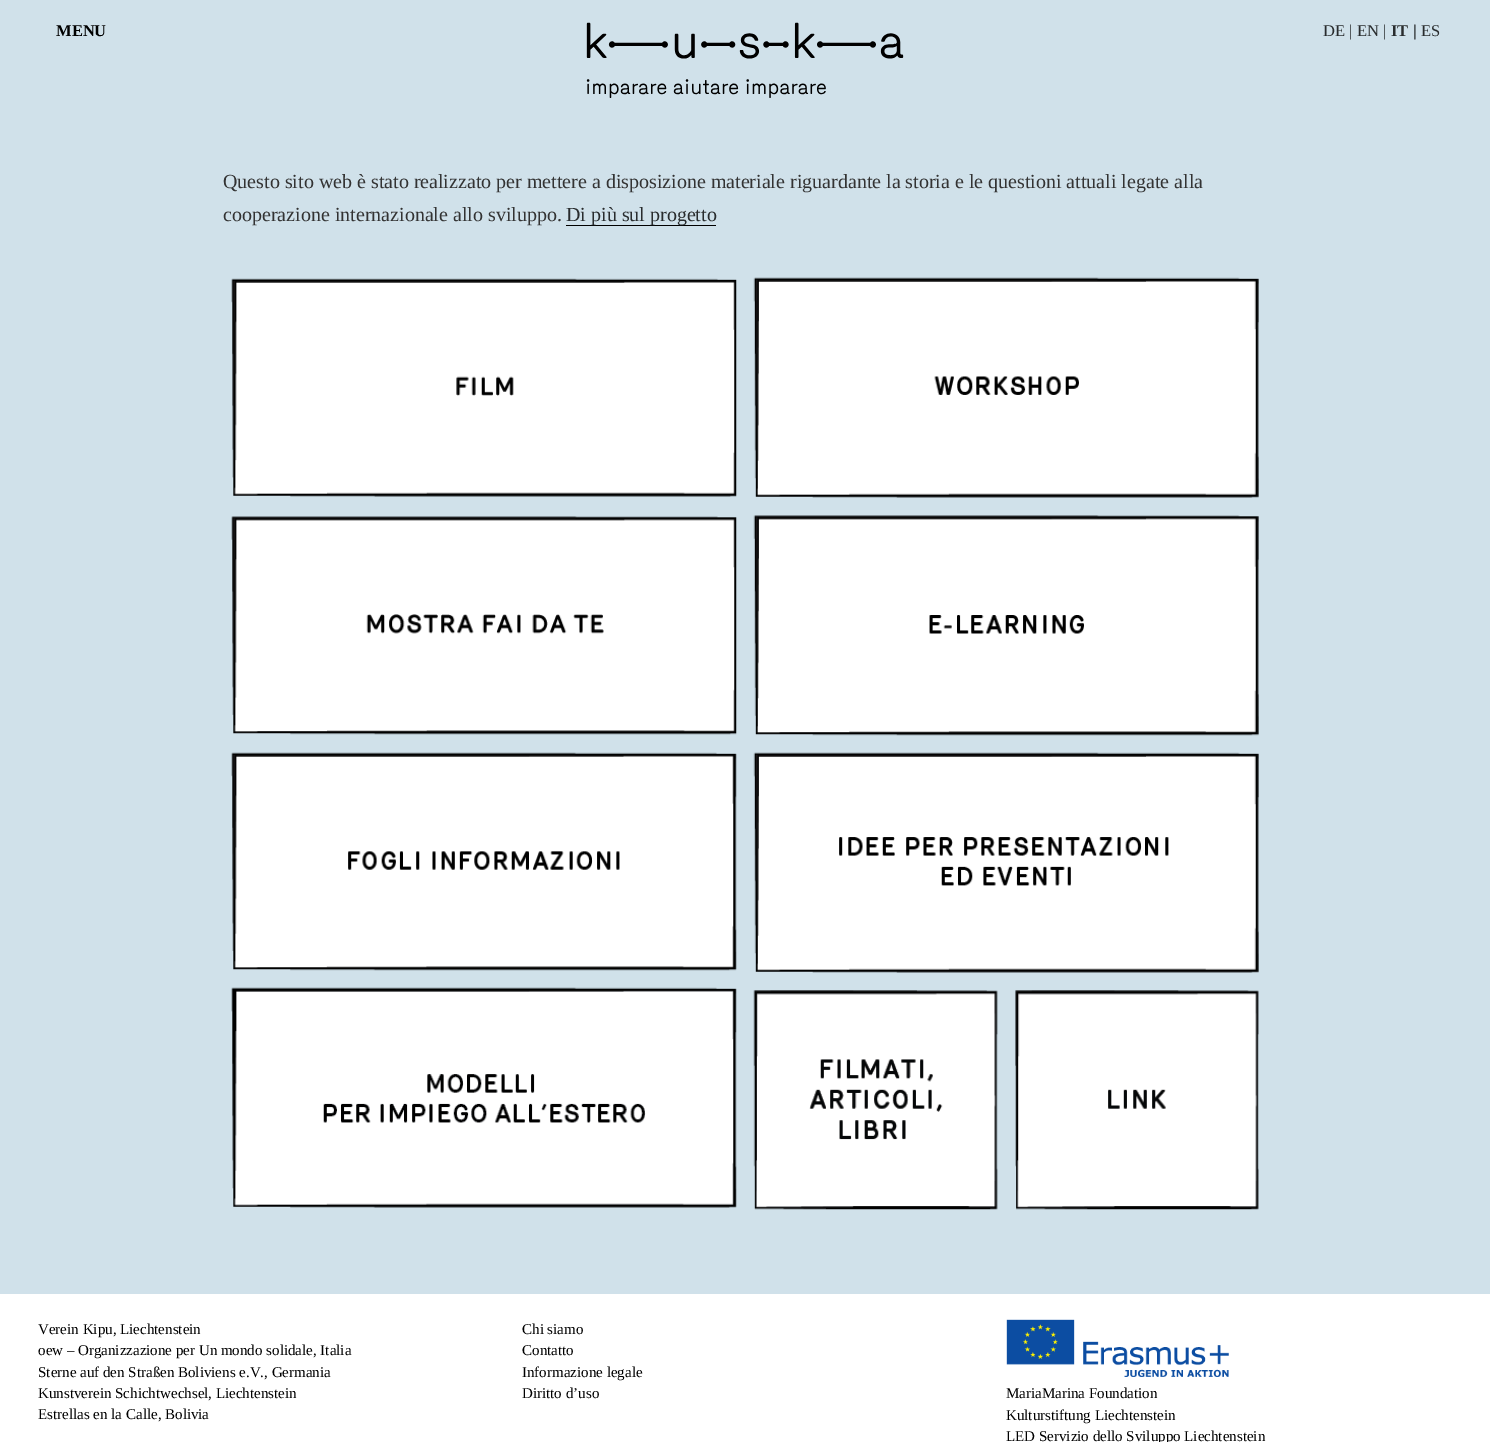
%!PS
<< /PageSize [1490 1442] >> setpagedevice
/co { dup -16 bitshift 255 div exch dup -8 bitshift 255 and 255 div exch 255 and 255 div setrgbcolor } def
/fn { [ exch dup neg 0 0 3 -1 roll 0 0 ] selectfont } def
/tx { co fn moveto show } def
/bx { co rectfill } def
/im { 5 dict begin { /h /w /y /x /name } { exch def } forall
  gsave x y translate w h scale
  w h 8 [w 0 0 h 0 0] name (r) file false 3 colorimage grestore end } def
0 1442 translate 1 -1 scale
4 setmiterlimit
0 0 1490 1442 16#D0E1EA bx
(media/1.raw) 586 22 318 76 im
566 225 150 1 16#000000 bx
(media/2.raw) 231 278 506 219 im
(media/3.raw) 231 516 506 219 im
(media/4.raw) 231 752 506 219 im
(media/5.raw) 231 987 506 221 im
(media/6.raw) 753 277 506 221 im
(media/7.raw) 753 515 506 221 im
(media/8.raw) 753 752 506 221 im
(media/9.raw) 753 990 245 220 im
(media/10.raw) 1015 990 244 220 im
0 1294 1490 148 16#FFFFFF bx
(media/11.raw) 1006 1319 223 58 im
(MENU) 56 36 /LiberationSerif-Bold 16.5 16#000000 tx
(DE | EN |) 1323 36 /LiberationSerif-Regular 16.5 16#292C2E tx
(IT |) 1391 36 /LiberationSerif-Bold 16.5 16#292C2E tx
(ES) 1421 36 /LiberationSerif-Regular 16.5 16#292C2E tx
(Questo sito web è stato realizzato per mettere a disposizione materiale riguardante la storia e le questioni attuali legate alla) 223 188 /LiberationSerif-Regular 20 16#333333 tx
(cooperazione internazionale allo sviluppo.) 223 221 /LiberationSerif-Regular 20 16#333333 tx
(Di più sul progetto) 566 221 /LiberationSerif-Regular 20 16#292C2E tx
(Verein Kipu, Liechtenstein) 38 1334 /LiberationSerif-Regular 15 16#000000 tx
(oew – Organizzazione per Un mondo solidale, Italia) 38 1355 /LiberationSerif-Regular 15 16#000000 tx
(Sterne auf den Straßen Boliviens e.V., Germania) 38 1377 /LiberationSerif-Regular 15 16#000000 tx
(Kunstverein Schichtwechsel, Liechtenstein) 38 1398 /LiberationSerif-Regular 15 16#000000 tx
(Estrellas en la Calle, Bolivia) 38 1419 /LiberationSerif-Regular 15 16#000000 tx
(Chi siamo) 522 1334 /LiberationSerif-Regular 15 16#000000 tx
(Contatto) 522 1355 /LiberationSerif-Regular 15 16#000000 tx
(Informazione legale) 522 1377 /LiberationSerif-Regular 15 16#000000 tx
(Diritto d’uso) 522 1398 /LiberationSerif-Regular 15 16#000000 tx
(MariaMarina Foundation) 1006 1398 /LiberationSerif-Regular 15 16#000000 tx
(Kulturstiftung Liechtenstein) 1006 1420 /LiberationSerif-Regular 15 16#000000 tx
(LED Servizio dello Sviluppo Liechtenstein) 1006 1441 /LiberationSerif-Regular 15 16#000000 tx
showpage
